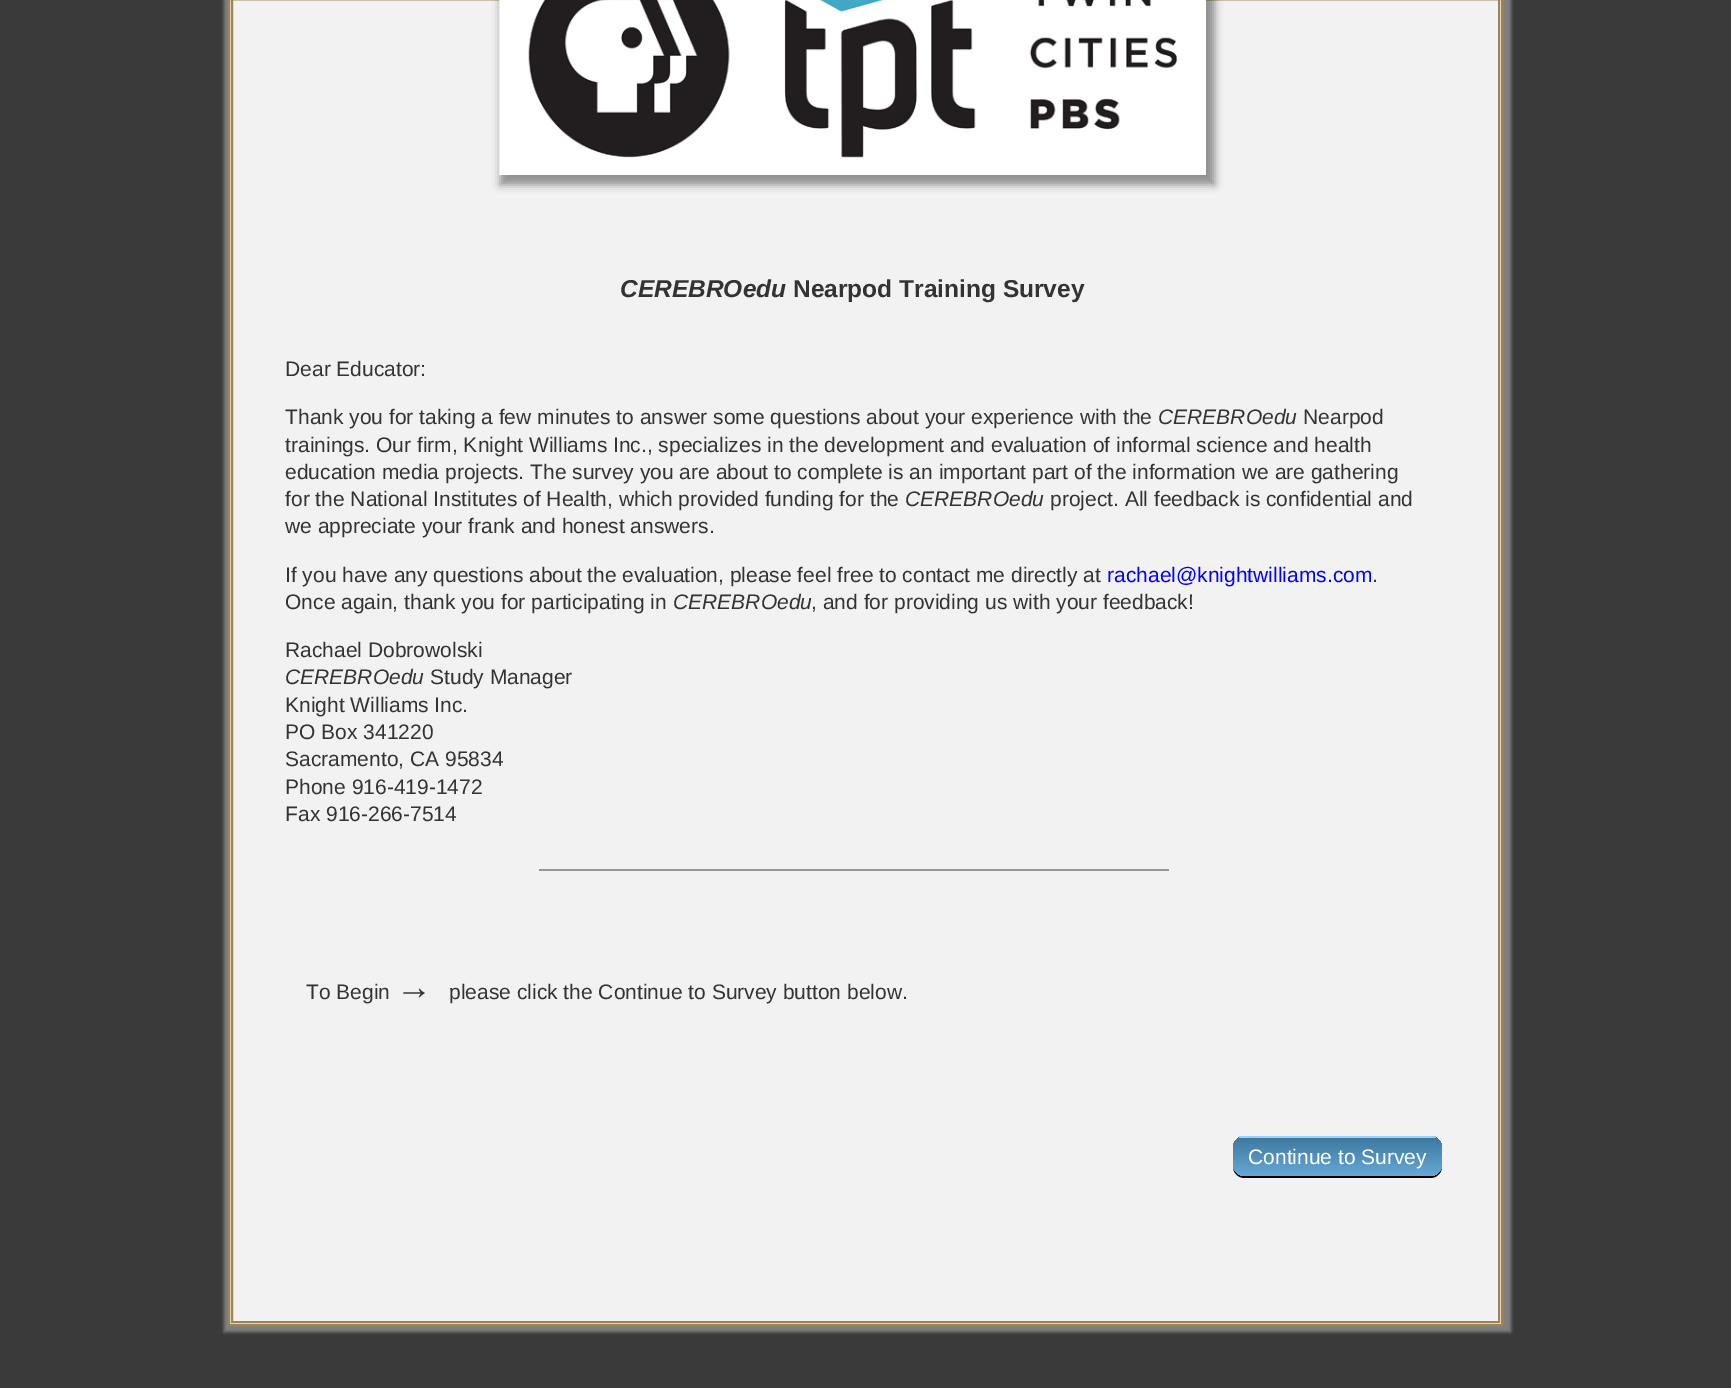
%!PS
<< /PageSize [1731 1388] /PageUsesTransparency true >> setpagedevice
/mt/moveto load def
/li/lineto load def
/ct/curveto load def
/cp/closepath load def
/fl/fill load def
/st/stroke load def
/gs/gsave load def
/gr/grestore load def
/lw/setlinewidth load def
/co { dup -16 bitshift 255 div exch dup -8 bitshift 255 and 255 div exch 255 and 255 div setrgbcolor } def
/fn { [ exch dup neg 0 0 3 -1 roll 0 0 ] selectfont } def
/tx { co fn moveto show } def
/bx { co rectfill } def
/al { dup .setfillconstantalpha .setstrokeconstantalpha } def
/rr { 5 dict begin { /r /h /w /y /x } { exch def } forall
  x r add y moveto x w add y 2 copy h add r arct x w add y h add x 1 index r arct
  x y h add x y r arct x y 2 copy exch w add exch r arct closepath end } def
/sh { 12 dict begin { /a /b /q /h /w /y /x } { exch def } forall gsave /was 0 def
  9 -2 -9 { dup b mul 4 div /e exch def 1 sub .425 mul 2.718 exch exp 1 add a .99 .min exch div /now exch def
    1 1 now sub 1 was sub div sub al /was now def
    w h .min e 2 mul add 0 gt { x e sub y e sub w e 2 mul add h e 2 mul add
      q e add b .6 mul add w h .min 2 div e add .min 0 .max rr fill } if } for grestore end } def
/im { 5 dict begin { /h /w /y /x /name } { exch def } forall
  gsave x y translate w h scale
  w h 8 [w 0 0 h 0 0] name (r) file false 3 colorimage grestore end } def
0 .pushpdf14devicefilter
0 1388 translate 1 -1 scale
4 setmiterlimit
0 0 1731 1388 16#3A3A3A bx
16#CAC5C5 co
224 -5 1287 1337 0 1.5 .49 sh
16#F2F2F2 co
229 -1 mt 1502 -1 li 1502 1325 li 229 1325 li cp gs fl gr
16#9E8455 co
2 lw
st
232 -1 1267 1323 rectstroke
16#000000 co
500 -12 715 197 0 4 .4 sh
(media/1.raw) 499 0 707 175 im
539 869 630 2 16#9A9494 bx
16#000000 co
1233 1164 mt 1233 1166 li 1233 1173 1238 1178 1245 1178 ct 1430 1178 li 1437 1178 1442 1173 1442 1166 ct 1442 1149 li 1441 1144 li 1442 1164 li 1442 1171 1436 1176 1430 1176 ct 1245 1176 li 1238 1176 1233 1171 1233 1164 ct cp fl
gs
1233 1136 209 40 12 rr clip newpath
gs 1233 1137 mt 1442 1137 li 1442 1164 li 1442 1170.5 1436.5 1176 1430 1176 ct 1245 1176 li 1238.5 1176 1233 1170.5 1233 1164 ct cp clip newpath
<< /ShadingType 2 /ColorSpace /DeviceRGB /Coords [1337 1137 1337 1176] /Extend [true true] /Function << /FunctionType 2 /Domain [0 1] /C0 [.243 .467 .616] /C1 [.396 .663 .843] /N 1 >> >> shfill gr
gr
1239 1136 197 2 16#96D1F8 bx
(CEREBROedu) 620 297 /LiberationSans-BoldItalic 24.5 16#333333 tx
(Nearpod Training Survey) 793 297 /LiberationSans-Bold 24.5 16#333333 tx
(Dear Educator:) 285 376 /LiberationSans-Regular 21 16#333333 tx
(Thank you for taking a few minutes to answer some questions about your experience with the) 285 424 /LiberationSans-Regular 21 16#333333 tx
(CEREBROedu) 1158 424 /LiberationSans-Italic 21 16#333333 tx
(Nearpod) 1303 424 /LiberationSans-Regular 21 16#333333 tx
(trainings. Our firm, Knight Williams Inc., specializes in the development and evaluation of informal science and health) 285 452 /LiberationSans-Regular 21 16#333333 tx
(education media projects. The survey you are about to complete is an important part of the information we are gathering) 285 479 /LiberationSans-Regular 21 16#333333 tx
(for the National Institutes of Health, which provided funding for the) 285 506 /LiberationSans-Regular 21 16#333333 tx
(CEREBROedu) 905 506 /LiberationSans-Italic 21 16#333333 tx
(project. All feedback is confidential and) 1050 506 /LiberationSans-Regular 21 16#333333 tx
(we appreciate your frank and honest answers.) 285 533 /LiberationSans-Regular 21 16#333333 tx
(If you have any questions about the evaluation, please feel free to contact me directly at) 285 582 /LiberationSans-Regular 21 16#333333 tx
(rachael@knightwilliams.com) 1107 582 /LiberationSans-Regular 21 16#0000FF tx
(.) 1372 582 /LiberationSans-Regular 21 16#333333 tx
(Once again, thank you for participating in) 285 609 /LiberationSans-Regular 21 16#333333 tx
(CEREBROedu) 673 609 /LiberationSans-Italic 21 16#333333 tx
(, and for providing us with your feedback!) 811 609 /LiberationSans-Regular 21 16#333333 tx
(Rachael Dobrowolski) 285 657 /LiberationSans-Regular 21 16#333333 tx
(CEREBROedu) 285 684 /LiberationSans-Italic 21 16#333333 tx
(Study Manager) 430 684 /LiberationSans-Regular 21 16#333333 tx
(Knight Williams Inc.) 285 712 /LiberationSans-Regular 21 16#333333 tx
(PO Box 341220) 285 739 /LiberationSans-Regular 21 16#333333 tx
(Sacramento, CA 95834) 285 766 /LiberationSans-Regular 21 16#333333 tx
(Phone 916-419-1472) 285 794 /LiberationSans-Regular 21 16#333333 tx
(Fax 916-266-7514) 285 821 /LiberationSans-Regular 21 16#333333 tx
(To Begin) 306 999 /LiberationSans-Regular 21 16#333333 tx
(→) 396 999 /LiberationSans-Italic 36 16#333333 tx
(please click the Continue to Survey button below.) 449 999 /LiberationSans-Regular 21 16#333333 tx
(Continue to Survey) 1248 1164 /LiberationSans-Regular 21 16#FFFFFF tx
.poppdf14devicefilter showpage
